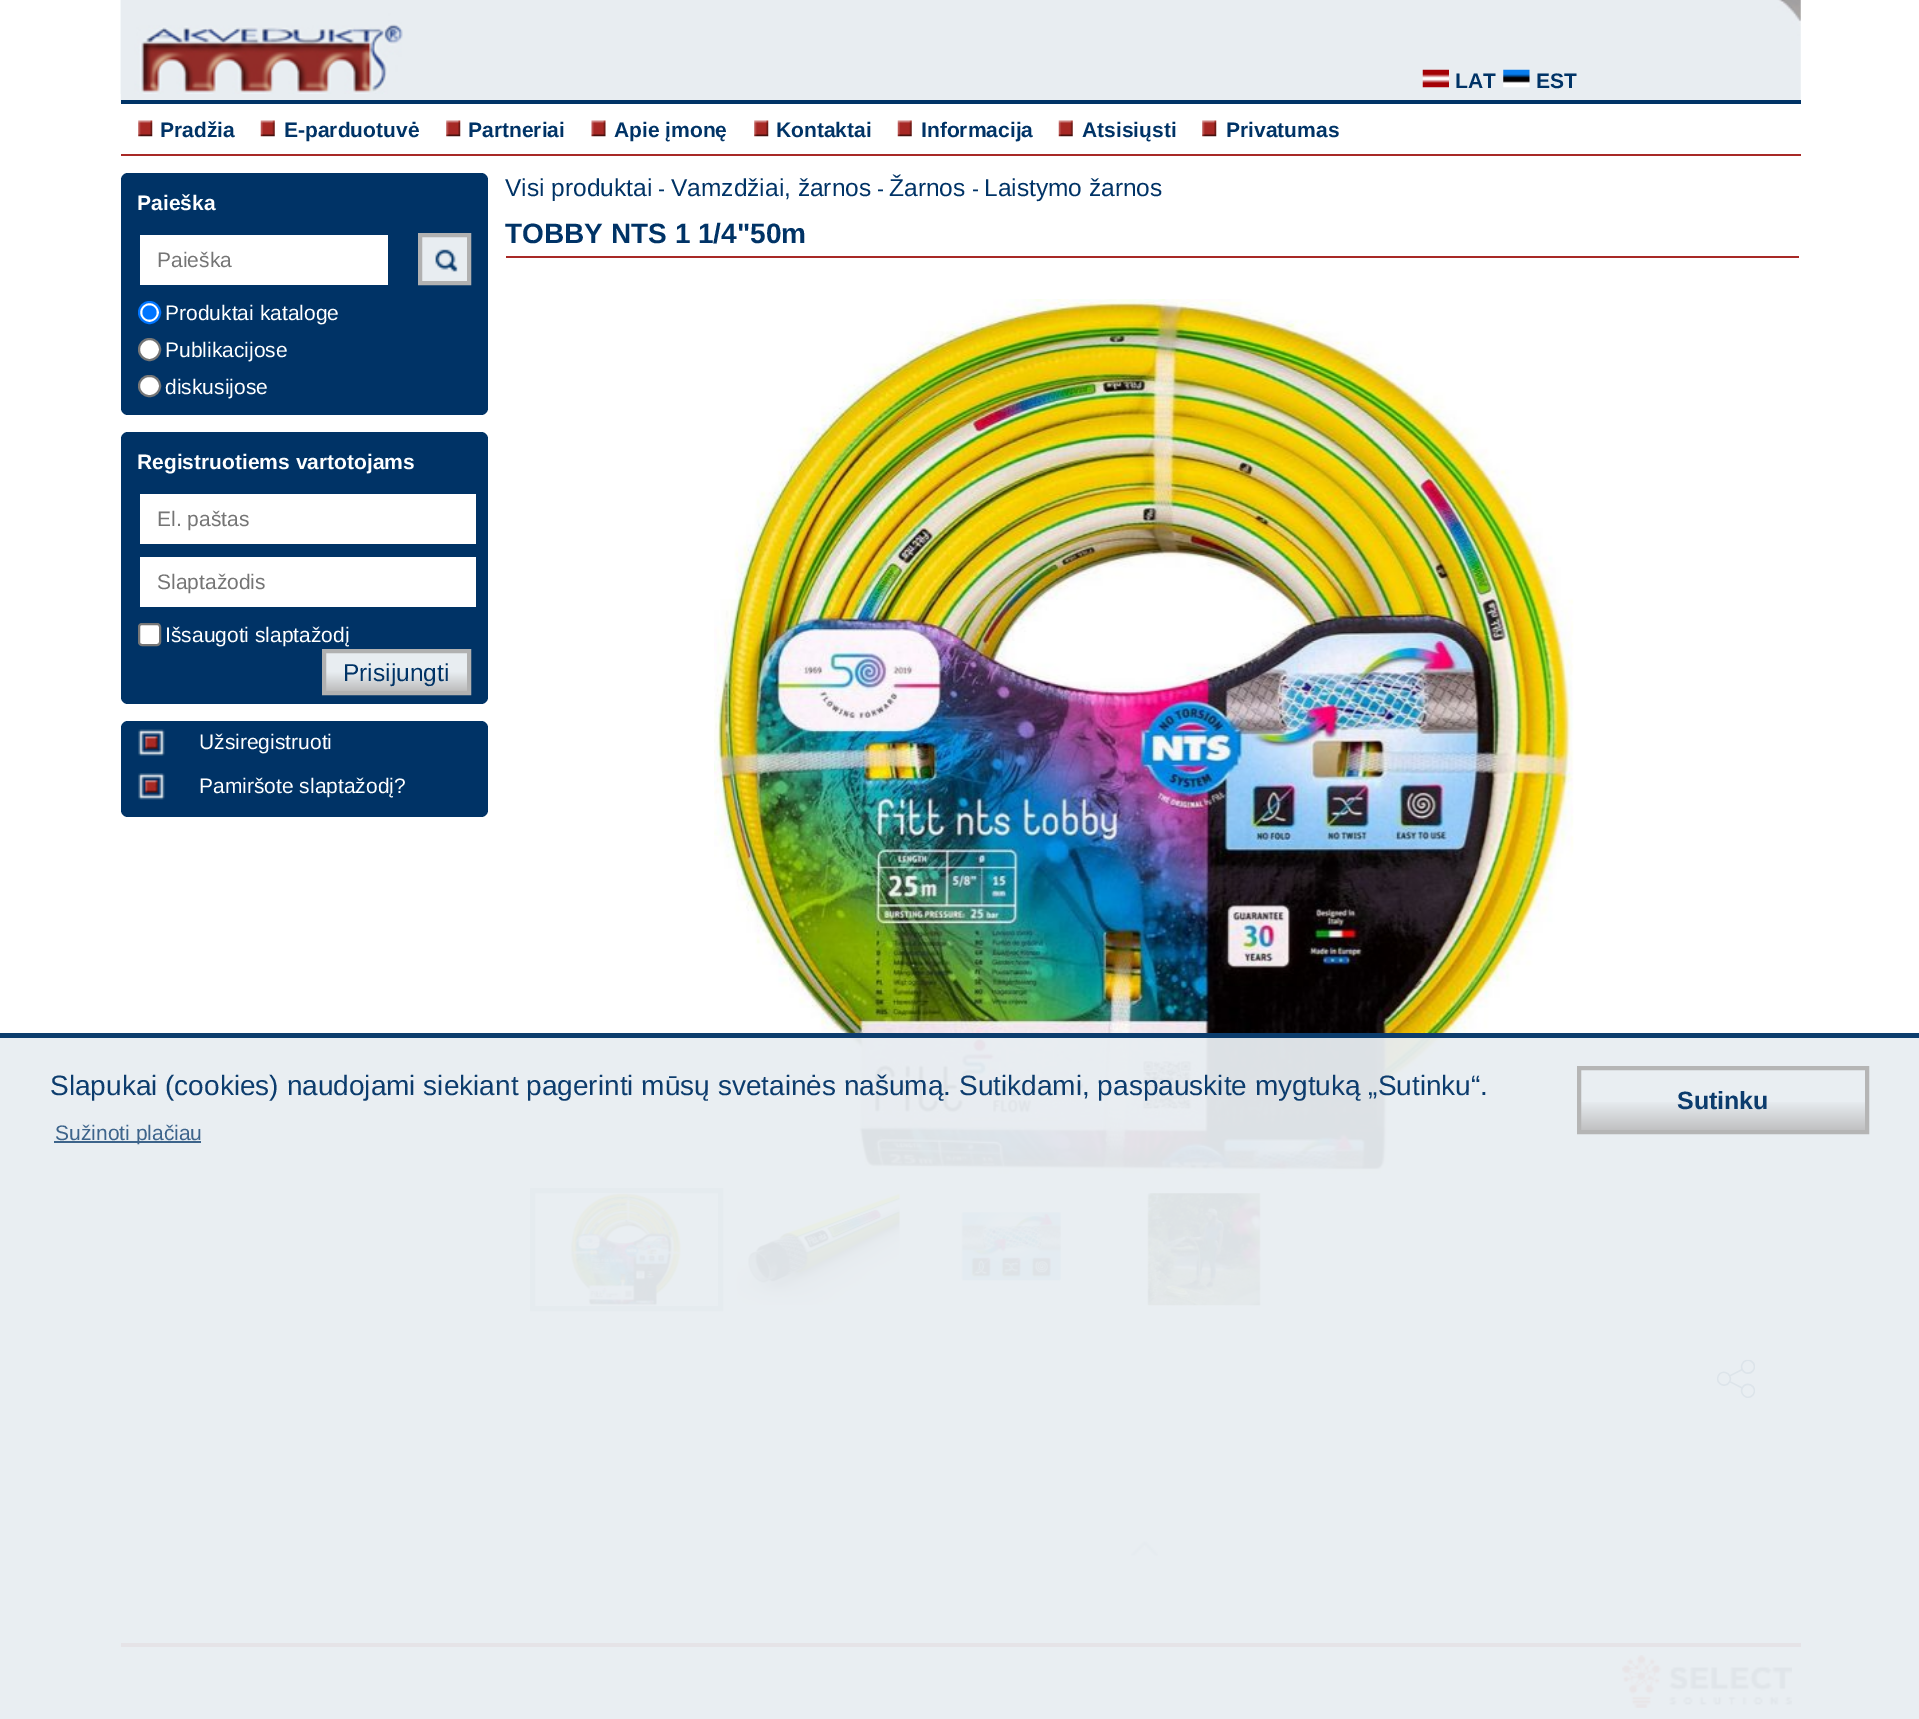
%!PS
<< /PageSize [1919 1719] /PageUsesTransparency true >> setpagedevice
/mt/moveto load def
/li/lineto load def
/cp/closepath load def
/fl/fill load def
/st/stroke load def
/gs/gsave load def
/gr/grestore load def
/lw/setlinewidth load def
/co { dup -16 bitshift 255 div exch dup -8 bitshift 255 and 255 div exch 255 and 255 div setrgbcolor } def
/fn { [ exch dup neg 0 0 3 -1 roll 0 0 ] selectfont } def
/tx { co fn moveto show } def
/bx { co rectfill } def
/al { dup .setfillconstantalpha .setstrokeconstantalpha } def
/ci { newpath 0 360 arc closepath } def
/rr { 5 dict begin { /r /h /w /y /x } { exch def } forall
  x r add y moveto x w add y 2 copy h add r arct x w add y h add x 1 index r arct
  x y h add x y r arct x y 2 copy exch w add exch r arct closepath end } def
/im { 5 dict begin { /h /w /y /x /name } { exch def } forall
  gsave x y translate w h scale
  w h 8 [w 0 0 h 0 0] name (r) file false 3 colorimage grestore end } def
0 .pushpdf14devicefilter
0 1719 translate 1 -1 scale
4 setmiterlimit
0 0 1919 1719 16#FFFFFF bx
(media/1.raw) 120 0 1681 103 im
121 100 1680 4 16#003366 bx
(media/2.raw) 120 0 283 94 im
(media/3.raw) 1422 69 27 19 im
(media/4.raw) 1503 69 27 19 im
121 154 1680 2 16#A82926 bx
(media/5.raw) 138 120 15 17 im
(media/6.raw) 260 120 15 17 im
(media/5.raw) 446 120 15 17 im
(media/7.raw) 591 120 15 17 im
(media/8.raw) 754 120 15 17 im
(media/9.raw) 897 120 15 17 im
(media/6.raw) 1058 120 15 17 im
(media/5.raw) 1202 120 15 17 im
16#003366 co
121 173 367 242 7 rr fl
140 235 248 50 16#FFFFFF bx
(media/10.raw) 422 237 45 44 im
16#B1B1B1 co
4 lw
420 235 49 48 rectstroke
16#FFFFFF co
149.5 312.5 10.5 ci gs fl gr
16#0075FF co
2 lw
st
149.5 312.5 7 ci fl
16#FFFFFF co
149.5 349.5 10.5 ci gs fl gr
16#767676 co
st
16#FFFFFF co
139 376 21 20 10 rr gs fl gr
16#767676 co
st
16#003366 co
121 432 367 272 7 rr fl
140 494 336 50 16#FFFFFF bx
140 557 336 50 16#FFFFFF bx
139 624 21 21 3 rr gs fl gr
16#767676 co
st
gs 326 653 mt 467 653 li 467 691 li 326 691 li cp clip newpath
<< /ShadingType 2 /ColorSpace /DeviceRGB /Coords [396 653 396 691] /Extend [true true] /Function << /FunctionType 3 /Domain [0 1] /Functions [<< /FunctionType 2 /Domain [0 1] /C0 [.91 .929 .945] /C1 [.91 .929 .945] /N 1 >> << /FunctionType 2 /Domain [0 1] /C0 [.91 .929 .945] /C1 [.741 .741 .741] /N 1 >>] /Bounds [.5] /Encode [0 1 0 1] >> >> shfill gr
16#B1B1B1 co
4 lw
324 651 145 42 rectstroke
16#003366 co
121 721 367 96 7 rr fl
(media/11.raw) 138 729 27 27 im
(media/12.raw) 138 773 27 27 im
506 256 1293 2 16#A82926 bx
(media/13.raw) 714 299 860 875 im
16#B2C2D2 co
5 lw
532.5 1190.5 188 118 rectstroke
(media/14.raw) 570 1193 111 113 im
(media/15.raw) 736 1193 164 112 im
(media/16.raw) 961 1212 100 69 im
(media/17.raw) 1147 1193 114 113 im
(media/18.raw) 1717 1359 38 39 im
(media/19.raw) 1131 1541 27 15 im
121 1643 1680 4 16#A82926 bx
(media/20.raw) 1622 1655 170 53 im
0.95 al
0 1033 1919 686 16#E8EDF1 bx
0 1033 1919 5 16#003366 bx
1 al
54 1141 147 2 16#3D648B bx
gs 1581 1102 mt 1865 1102 li 1865 1130 li 1581 1130 li cp clip newpath
<< /ShadingType 2 /ColorSpace /DeviceRGB /Coords [1723 1069 1723 1131] /Extend [true true] /Function << /FunctionType 3 /Domain [0 1] /Functions [<< /FunctionType 2 /Domain [0 1] /C0 [.914 .933 .949] /C1 [.914 .933 .949] /N 1 >> << /FunctionType 2 /Domain [0 1] /C0 [.914 .933 .949] /C1 [.753 .753 .753] /N 1 >>] /Bounds [.5] /Encode [0 1 0 1] >> >> shfill gr
16#B5B5B5 co
4 lw
1579 1068 288 64 rectstroke
(LAT) 1455 88 /LiberationSans-Bold 21 16#003366 tx
(EST) 1536 88 /LiberationSans-Bold 21 16#003366 tx
(Pradžia) 160 137 /LiberationSans-Bold 21 16#003366 tx
(E-parduotuvė) 284 137 /LiberationSans-Bold 21 16#003366 tx
(Partneriai) 468 137 /LiberationSans-Bold 21 16#003366 tx
(Apie įmonę) 614 137 /LiberationSans-Bold 21 16#003366 tx
(Kontaktai) 776 137 /LiberationSans-Bold 21 16#003366 tx
(Informacija) 921 137 /LiberationSans-Bold 21 16#003366 tx
(Atsisiųsti) 1082 137 /LiberationSans-Bold 21 16#003366 tx
(Privatumas) 1226 137 /LiberationSans-Bold 21 16#003366 tx
(Paieška) 137 210 /LiberationSans-Bold 21 16#FFFFFF tx
(Paieška) 157 267 /LiberationSans-Regular 21 16#757575 tx
(Produktai kataloge) 165 320 /LiberationSans-Regular 21 16#FFFFFF tx
(Publikacijose) 165 357 /LiberationSans-Regular 21 16#FFFFFF tx
(diskusijose) 165 394 /LiberationSans-Regular 21 16#FFFFFF tx
(Registruotiems vartotojams) 137 469 /LiberationSans-Bold 21 16#FFFFFF tx
(El. paštas) 157 526 /LiberationSans-Regular 21 16#757575 tx
(Slaptažodis) 157 589 /LiberationSans-Regular 21 16#757575 tx
(Išsaugoti slaptažodį) 165 642 /LiberationSans-Regular 21 16#FFFFFF tx
(Prisijungti) 343 681 /LiberationSans-Regular 24.5 16#003366 tx
(Užsiregistruoti) 199 749 /LiberationSans-Regular 21 16#FFFFFF tx
(Pamiršote slaptažodį?) 199 793 /LiberationSans-Regular 21 16#FFFFFF tx
(Visi produktai) 505 196 /LiberationSans-Regular 24.5 16#003366 tx
(-) 658 196 /LiberationSans-Regular 21 16#003366 tx
(Vamzdžiai, žarnos) 671 196 /LiberationSans-Regular 24.5 16#003366 tx
(-) 877 196 /LiberationSans-Regular 21 16#003366 tx
(Žarnos) 889 196 /LiberationSans-Regular 24.5 16#003366 tx
(-) 972 196 /LiberationSans-Regular 21 16#003366 tx
(Laistymo žarnos) 984 196 /LiberationSans-Regular 24.5 16#003366 tx
(TOBBY NTS 1 1/4"50m) 505 243 /LiberationSans-Bold 28 16#003366 tx
(Slapukai \(cookies\) naudojami siekiant pagerinti mūsų svetainės našumą.) 50 1095 /LiberationSans-Regular 28 16#0C3C6D tx
(Sutikdami, paspauskite mygtuką „Sutinku“.) 959 1095 /LiberationSans-Regular 28 16#0C3C6D tx
(Sužinoti plačiau) 55 1140 /LiberationSans-Regular 21 16#3D648B tx
(Sutinku) 1677 1109 /LiberationSans-Bold 25 16#0C3C6D tx
.poppdf14devicefilter showpage
